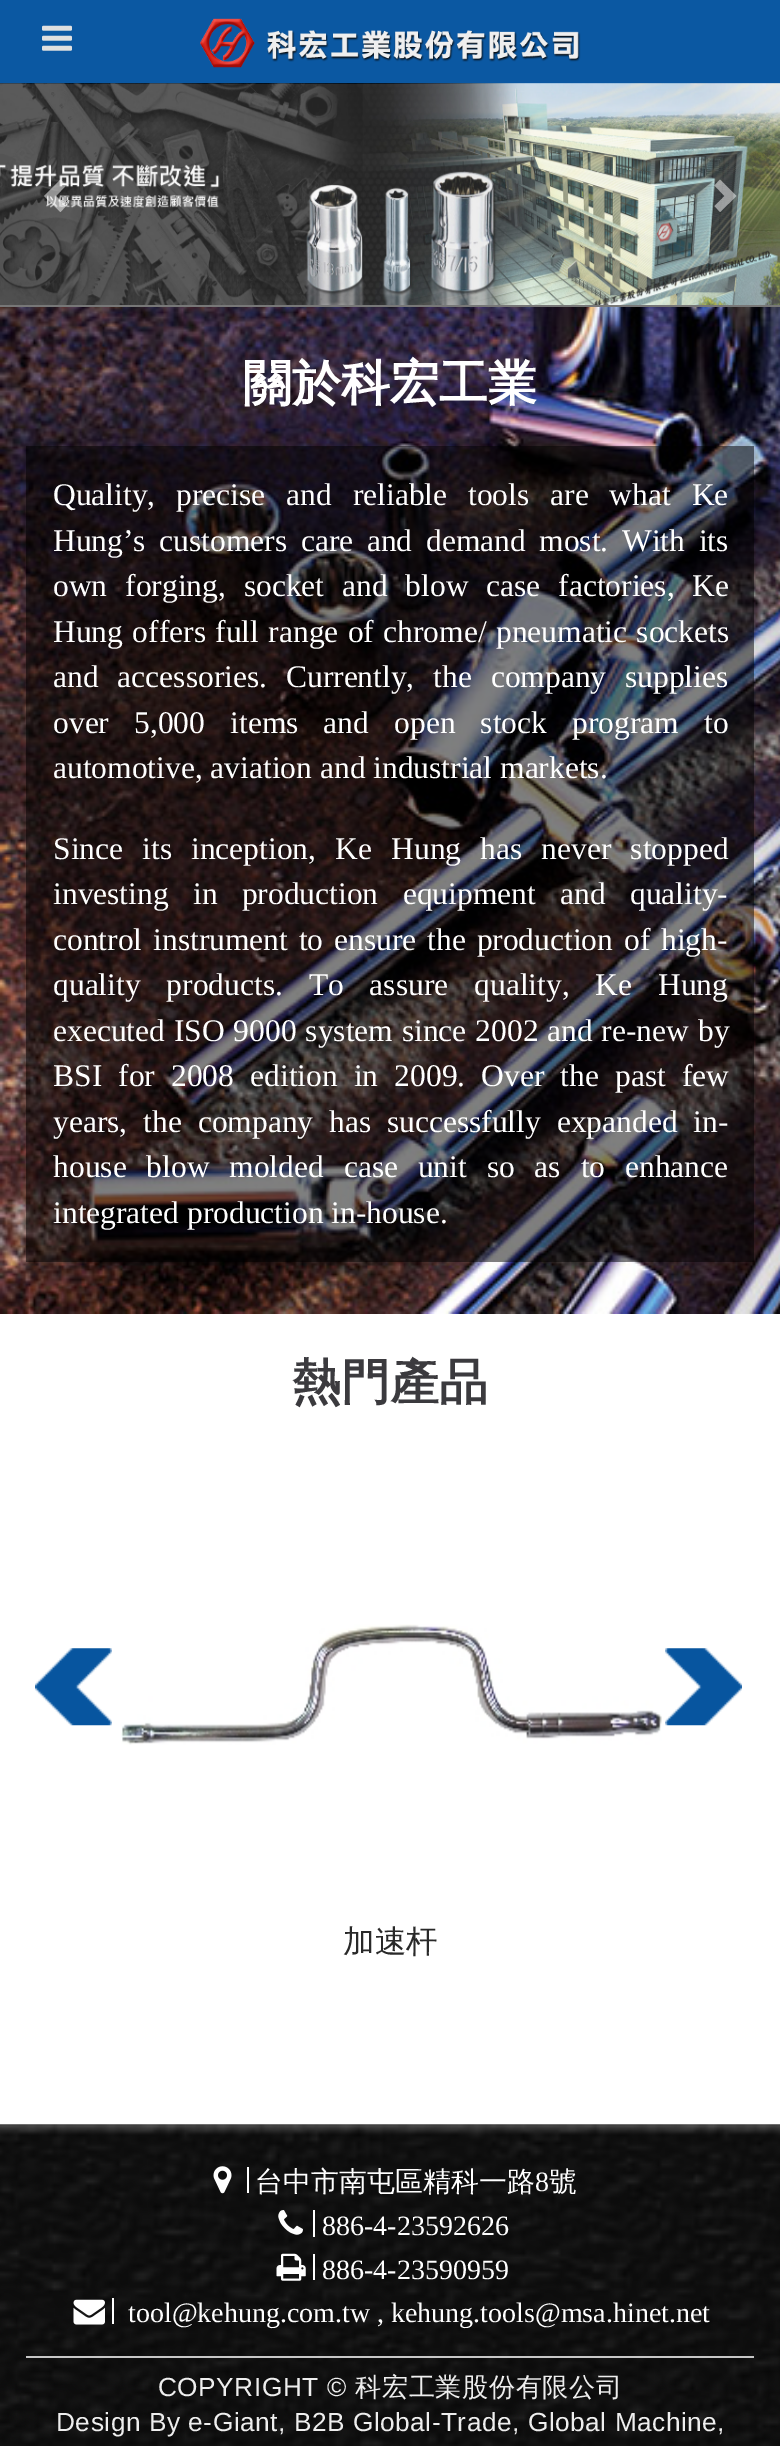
%!PS
<< /PageSize [780 2446] /PageUsesTransparency true >> setpagedevice
/mt/moveto load def
/li/lineto load def
/cp/closepath load def
/fl/fill load def
/co { dup -16 bitshift 255 div exch dup -8 bitshift 255 and 255 div exch 255 and 255 div setrgbcolor } def
/fn { [ exch dup neg 0 0 3 -1 roll 0 0 ] selectfont } def
/tx { co fn moveto show } def
/bx { co rectfill } def
/al { dup .setfillconstantalpha .setstrokeconstantalpha } def
/im { 5 dict begin { /h /w /y /x /name } { exch def } forall
  gsave x y translate w h scale
  w h 8 [w 0 0 h 0 0] name (r) file false 3 colorimage grestore end } def
0 .pushpdf14devicefilter
0 2446 translate 1 -1 scale
4 setmiterlimit
0 0 780 2446 16#FFFFFF bx
0 0 780 84 16#0B58A2 bx
(media/1.raw) 42 25 30 26 im
(media/2.raw) 200 18 381 50 im
(media/3.raw) 0 83 780 222 im
0.5 al
16#FFFFFF co
66 185.5 mt 56 196 li 66 206 li 60.5 212 li 44 196 li 60.5 179.5 li cp fl
736.5 196 mt 720 212 li 714.5 206 li 724.5 196 li 714.5 185.5 li 720 179.5 li cp fl
1 al
(media/4.raw) 0 307 780 1007 im
0 305 780 2 16#777777 bx
0.5 al
26 446 728 816 16#000000 bx
1 al
(media/5.raw) 35 1648 77 78 im
(media/6.raw) 665 1648 77 78 im
(media/7.raw) 121 1624 541 121 im
(media/8.raw) 0 2124 780 322 im
26 2356 728 2 16#C7C7C7 bx
(media/9.raw) 213 2166 19 28 im
247 2167 2 26 16#FFFFFF bx
(media/10.raw) 278 2210 25 25 im
313 2210 2 27 16#FFFFFF bx
(media/11.raw) 276 2253 30 28 im
313 2254 2 26 16#FFFFFF bx
(media/12.raw) 73 2299 32 26 im
112 2298 2 26 16#FFFFFF bx
(關於科宏工業) 243 400 /WenQuanYiZenHei-Bold 49 16#FFFFFF tx
/LiberationSerif-Regular 31.5 fn
53 505 mt 13 0 32 (Quality, precise and reliable tools are what Ke) widthshow
53 551 mt 5.75 0 32 (Hung’s customers care and demand most. With its) widthshow
53 596 mt 10 0 32 (own forging, socket and blow case factories, Ke) widthshow
53 642 mt 1.5 0 32 (Hung offers full range of chrome/ pneumatic sockets) widthshow
53 687 mt 11 0 32 (and accessories. Currently, the company supplies) widthshow
53 733 mt 17.25 0 32 (over 5,000 items and open stock program to) widthshow
(automotive, aviation and industrial markets.) 53 778 /LiberationSerif-Regular 31.5 16#FFFFFF tx
53 859 mt 11.25 0 32 (Since its inception, Ke Hung has never stopped) widthshow
53 904 mt 16.5 0 32 (investing in production equipment and quality-) widthshow
53 950 mt 3 0 32 (control instrument to ensure the production of high-) widthshow
53 995 mt 18 0 32 (quality products. To assure quality, Ke Hung) widthshow
53 1041 mt 1 0 32 (executed ISO 9000 system since 2002 and re-new by) widthshow
53 1086 mt 8.25 0 32 (BSI for 2008 edition in 2009. Over the past few) widthshow
53 1132 mt 8 0 32 (years, the company has successfully expanded in-) widthshow
53 1177 mt 12 0 32 (house blow molded case unit so as to enhance) widthshow
(integrated production in-house.) 53 1223 /LiberationSerif-Regular 31.5 16#FFFFFF tx
(熱門產品) 292 1399 /WenQuanYiZenHei-Bold 49 16#3B3A3E tx
(加速杆) 343 1952 /WenQuanYiZenHei-Medium 31.5 16#292929 tx
(台中市南屯區精科一路) 255 2191 /WenQuanYiZenHei-Medium 28 16#FFFFFF tx
(8) 535 2191 /LiberationSerif-Regular 28 16#FFFFFF tx
(號) 549 2191 /WenQuanYiZenHei-Medium 28 16#FFFFFF tx
(886-4-23592626) 322 2235 /LiberationSerif-Regular 28 16#FFFFFF tx
(886-4-23590959) 322 2279 /LiberationSerif-Regular 28 16#FFFFFF tx
(tool@kehung.com.tw , kehung.tools@msa.hinet.net) 128 2322 /LiberationSerif-Regular 28 16#FFFFFF tx
/LiberationSans-Regular 26.25 fn
16#EEEEEE co
158 2396 mt .53 0 (COPYRIGHT ©) ashow
/WenQuanYiZenHei-Medium 26.25 fn
355 2396 mt .53 0 (科宏工業股份有限公司) ashow
/LiberationSans-Regular 26.25 fn
56 2431 mt .53 0 (Design By e-Giant, B2B Global-Trade, Global Machine,) ashow
.poppdf14devicefilter showpage
